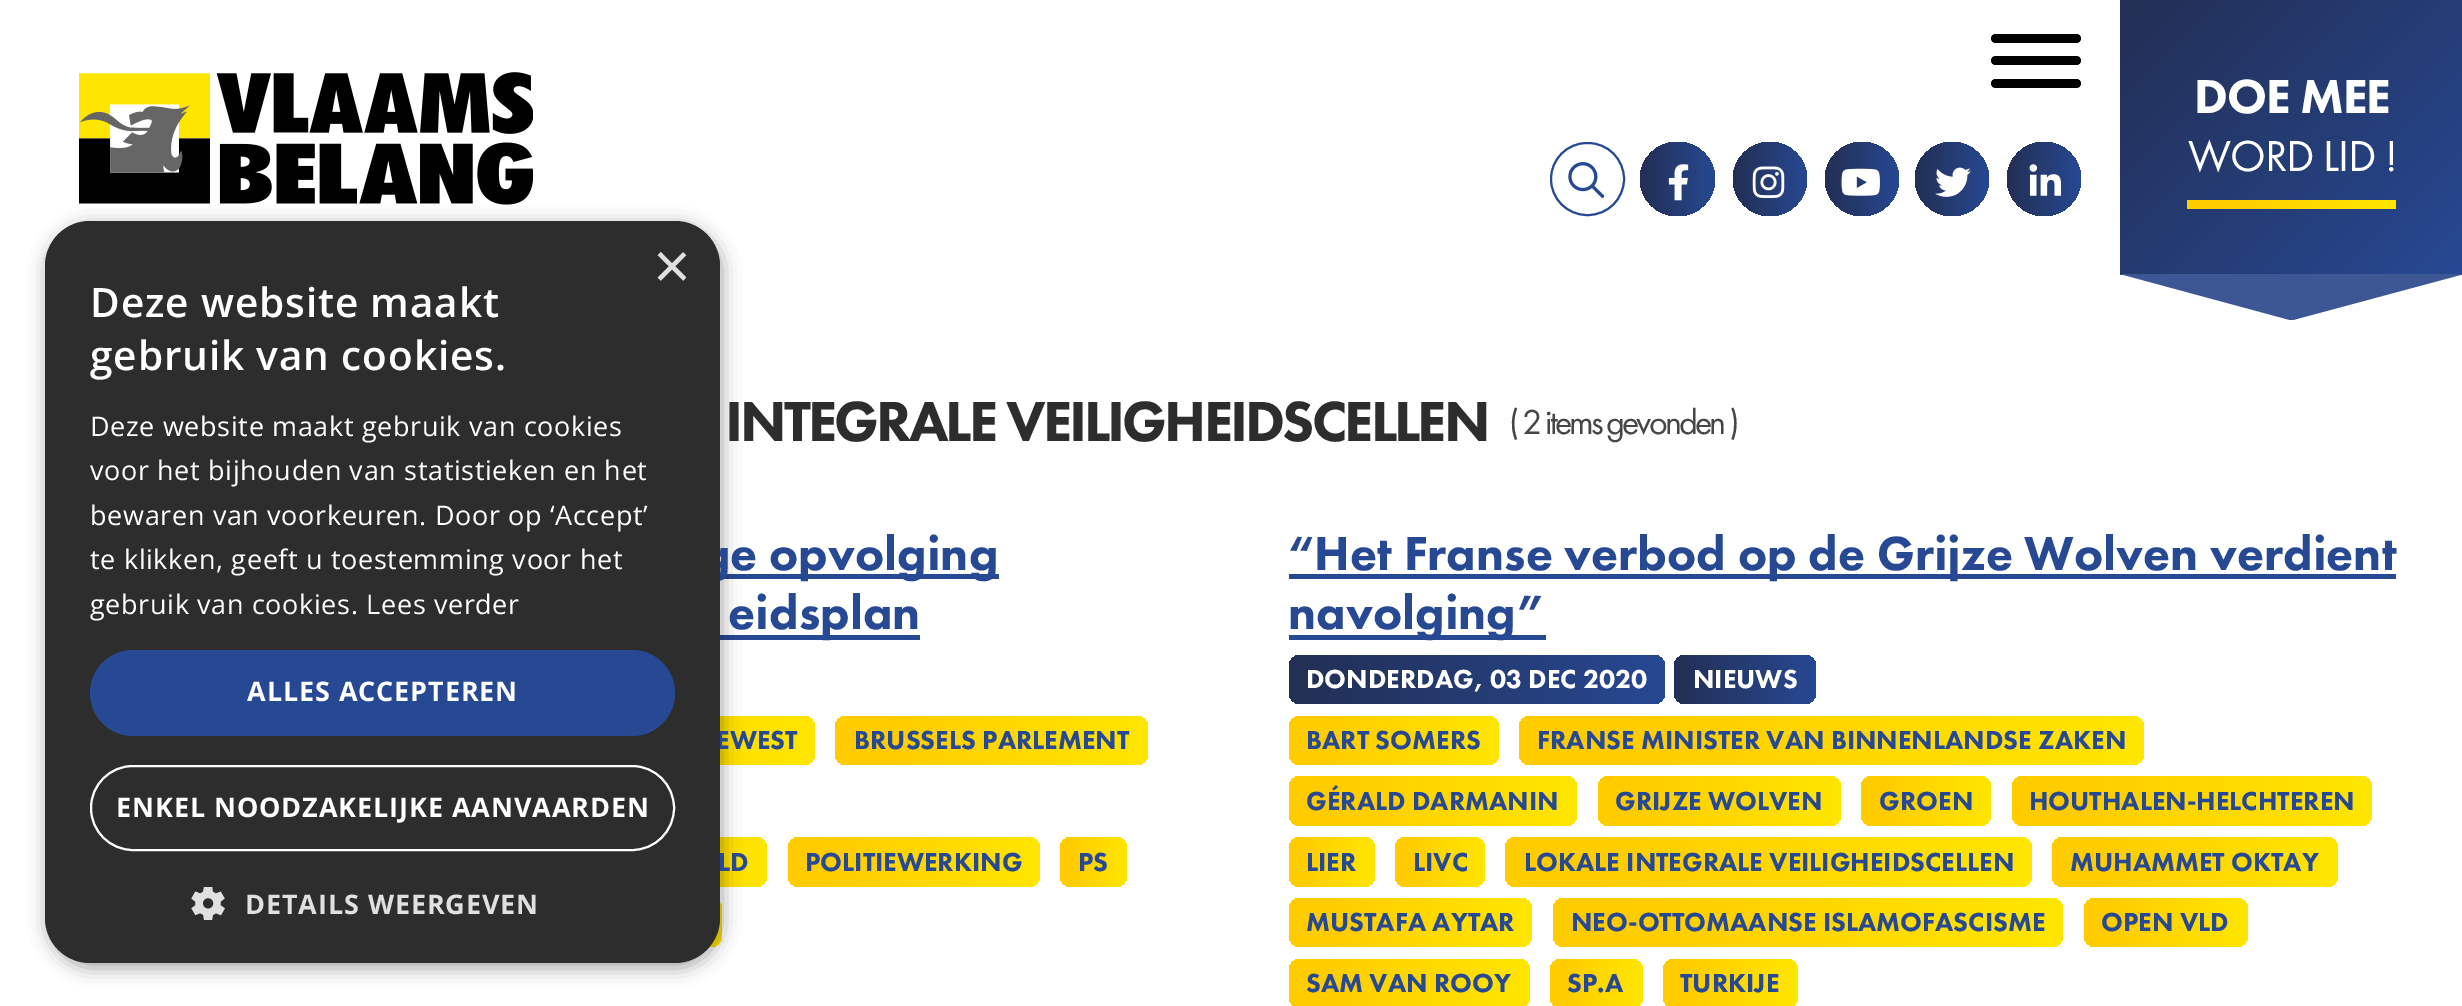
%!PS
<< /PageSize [2462 1006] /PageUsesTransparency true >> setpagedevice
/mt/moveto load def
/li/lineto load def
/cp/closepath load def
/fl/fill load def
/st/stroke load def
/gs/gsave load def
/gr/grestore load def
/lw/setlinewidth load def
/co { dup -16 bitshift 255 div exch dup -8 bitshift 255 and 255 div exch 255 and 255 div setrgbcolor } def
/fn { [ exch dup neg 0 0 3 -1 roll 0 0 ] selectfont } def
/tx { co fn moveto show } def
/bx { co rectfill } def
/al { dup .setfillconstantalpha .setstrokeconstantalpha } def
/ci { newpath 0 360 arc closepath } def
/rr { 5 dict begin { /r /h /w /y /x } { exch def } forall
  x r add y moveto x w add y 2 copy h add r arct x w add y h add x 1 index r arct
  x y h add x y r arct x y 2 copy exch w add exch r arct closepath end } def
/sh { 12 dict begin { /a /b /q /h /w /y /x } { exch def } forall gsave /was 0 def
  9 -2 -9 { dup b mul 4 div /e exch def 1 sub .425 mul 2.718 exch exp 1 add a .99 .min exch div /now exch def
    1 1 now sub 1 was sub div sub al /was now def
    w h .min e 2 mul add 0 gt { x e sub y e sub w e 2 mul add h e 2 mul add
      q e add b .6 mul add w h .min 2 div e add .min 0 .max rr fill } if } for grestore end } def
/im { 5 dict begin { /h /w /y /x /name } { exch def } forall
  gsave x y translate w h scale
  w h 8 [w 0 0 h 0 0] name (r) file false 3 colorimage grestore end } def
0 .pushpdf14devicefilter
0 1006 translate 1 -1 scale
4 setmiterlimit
0 0 2462 1006 16#FFFFFF bx
(media/2.raw) 79 72 454 133 im
720 574 279 5 16#274893 bx
720 635 200 5 16#274893 bx
gs 326 716 489 49 11 rr clip newpath
<< /ShadingType 2 /ColorSpace /DeviceRGB /Coords [815 743 326 738] /Extend [true true] /Function << /FunctionType 3 /Domain [0 1] /Functions [<< /FunctionType 2 /Domain [0 1] /C0 [1 .898 0] /C1 [1 .898 0] /N 1 >> << /FunctionType 2 /Domain [0 1] /C0 [1 .898 0] /C1 [1 .8 0] /N 1 >> << /FunctionType 2 /Domain [0 1] /C0 [1 .8 0] /C1 [1 .8 0] /N 1 >>] /Bounds [.02 .86] /Encode [0 1 0 1 0 1] >> >> shfill gr
gs 603 837 164 50 11 rr clip newpath
<< /ShadingType 2 /ColorSpace /DeviceRGB /Coords [767 863 603 861] /Extend [true true] /Function << /FunctionType 3 /Domain [0 1] /Functions [<< /FunctionType 2 /Domain [0 1] /C0 [1 .898 0] /C1 [1 .898 0] /N 1 >> << /FunctionType 2 /Domain [0 1] /C0 [1 .898 0] /C1 [1 .8 0] /N 1 >> << /FunctionType 2 /Domain [0 1] /C0 [1 .8 0] /C1 [1 .8 0] /N 1 >>] /Bounds [.02 .86] /Encode [0 1 0 1 0 1] >> >> shfill gr
gs 351 898 371 49 11 rr clip newpath
<< /ShadingType 2 /ColorSpace /DeviceRGB /Coords [722 924 351 921] /Extend [true true] /Function << /FunctionType 3 /Domain [0 1] /Functions [<< /FunctionType 2 /Domain [0 1] /C0 [1 .898 0] /C1 [1 .898 0] /N 1 >> << /FunctionType 2 /Domain [0 1] /C0 [1 .898 0] /C1 [1 .8 0] /N 1 >> << /FunctionType 2 /Domain [0 1] /C0 [1 .8 0] /C1 [1 .8 0] /N 1 >>] /Bounds [.02 .86] /Encode [0 1 0 1 0 1] >> >> shfill gr
16#000000 co
47 225 675 743 45 9 .35 sh
1991 56 90 9 4.5 rr fl
1991 34 90 9 4.5 rr fl
1991 79 90 9 4.5 rr fl
16#274893 co
2 lw
1551 143 73 72 36 rr st
(media/3.raw) 1568 162 37 36 im
gs 1640 142 75 74 37 rr clip newpath
<< /ShadingType 2 /ColorSpace /DeviceRGB /Coords [1640 179 1715 179] /Extend [true true] /Function << /FunctionType 3 /Domain [0 1] /Functions [<< /FunctionType 2 /Domain [0 1] /C0 [.137 .188 .337] /C1 [.137 .188 .337] /N 1 >> << /FunctionType 2 /Domain [0 1] /C0 [.137 .188 .337] /C1 [.153 .282 .576] /N 1 >>] /Bounds [.03] /Encode [0 1 0 1] >> >> shfill gr
(media/4.raw) 1668 164 21 37 im
gs 1770 179 37 ci clip newpath
<< /ShadingType 2 /ColorSpace /DeviceRGB /Coords [1733 179 1807 179] /Extend [true true] /Function << /FunctionType 3 /Domain [0 1] /Functions [<< /FunctionType 2 /Domain [0 1] /C0 [.137 .188 .337] /C1 [.137 .188 .337] /N 1 >> << /FunctionType 2 /Domain [0 1] /C0 [.137 .188 .337] /C1 [.153 .282 .576] /N 1 >>] /Bounds [.03] /Encode [0 1 0 1] >> >> shfill gr
(media/5.raw) 1752 166 33 32 im
gs 1862 179 37 ci clip newpath
<< /ShadingType 2 /ColorSpace /DeviceRGB /Coords [1825 179 1899 179] /Extend [true true] /Function << /FunctionType 3 /Domain [0 1] /Functions [<< /FunctionType 2 /Domain [0 1] /C0 [.137 .188 .337] /C1 [.137 .188 .337] /N 1 >> << /FunctionType 2 /Domain [0 1] /C0 [.137 .188 .337] /C1 [.153 .282 .576] /N 1 >>] /Bounds [.03] /Encode [0 1 0 1] >> >> shfill gr
(media/6.raw) 1841 168 39 28 im
gs 1952 179 37 ci clip newpath
<< /ShadingType 2 /ColorSpace /DeviceRGB /Coords [1915 179 1989 179] /Extend [true true] /Function << /FunctionType 3 /Domain [0 1] /Functions [<< /FunctionType 2 /Domain [0 1] /C0 [.137 .188 .337] /C1 [.137 .188 .337] /N 1 >> << /FunctionType 2 /Domain [0 1] /C0 [.137 .188 .337] /C1 [.153 .282 .576] /N 1 >>] /Bounds [.03] /Encode [0 1 0 1] >> >> shfill gr
(media/7.raw) 1935 167 36 30 im
gs 2044 179 37 ci clip newpath
<< /ShadingType 2 /ColorSpace /DeviceRGB /Coords [2007 179 2081 179] /Extend [true true] /Function << /FunctionType 3 /Domain [0 1] /Functions [<< /FunctionType 2 /Domain [0 1] /C0 [.137 .188 .337] /C1 [.137 .188 .337] /N 1 >> << /FunctionType 2 /Domain [0 1] /C0 [.137 .188 .337] /C1 [.153 .282 .576] /N 1 >>] /Bounds [.03] /Encode [0 1 0 1] >> >> shfill gr
(media/8.raw) 2029 164 32 32 im
gs 2120 0 mt 2462 0 li 2462 275 li 2120 275 li cp clip newpath
<< /ShadingType 2 /ColorSpace /DeviceRGB /Coords [2137 -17 2446 292] /Extend [true true] /Function << /FunctionType 3 /Domain [0 1] /Functions [<< /FunctionType 2 /Domain [0 1] /C0 [.137 .188 .337] /C1 [.137 .188 .337] /N 1 >> << /FunctionType 2 /Domain [0 1] /C0 [.137 .188 .337] /C1 [.153 .282 .576] /N 1 >>] /Bounds [.03] /Encode [0 1 0 1] >> >> shfill gr
gs 2187 200 mt 2396 200 li 2396 209 li 2187 209 li cp clip newpath
<< /ShadingType 2 /ColorSpace /DeviceRGB /Coords [2396 206 2187 204] /Extend [true true] /Function << /FunctionType 3 /Domain [0 1] /Functions [<< /FunctionType 2 /Domain [0 1] /C0 [1 .898 0] /C1 [1 .898 0] /N 1 >> << /FunctionType 2 /Domain [0 1] /C0 [1 .898 0] /C1 [1 .8 0] /N 1 >> << /FunctionType 2 /Domain [0 1] /C0 [1 .8 0] /C1 [1 .8 0] /N 1 >>] /Bounds [.02 .86] /Encode [0 1 0 1 0 1] >> >> shfill gr
16#3C5794 co
2120 274 mt 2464 274 li 2293 320 li 2290 320 li cp fl
gs 835 716 313 49 11 rr clip newpath
<< /ShadingType 2 /ColorSpace /DeviceRGB /Coords [1148 742 835 739] /Extend [true true] /Function << /FunctionType 3 /Domain [0 1] /Functions [<< /FunctionType 2 /Domain [0 1] /C0 [1 .898 0] /C1 [1 .898 0] /N 1 >> << /FunctionType 2 /Domain [0 1] /C0 [1 .898 0] /C1 [1 .8 0] /N 1 >> << /FunctionType 2 /Domain [0 1] /C0 [1 .8 0] /C1 [1 .8 0] /N 1 >>] /Bounds [.02 .86] /Encode [0 1 0 1 0 1] >> >> shfill gr
gs 788 837 252 50 11 rr clip newpath
<< /ShadingType 2 /ColorSpace /DeviceRGB /Coords [1040 863 787 861] /Extend [true true] /Function << /FunctionType 3 /Domain [0 1] /Functions [<< /FunctionType 2 /Domain [0 1] /C0 [1 .898 0] /C1 [1 .898 0] /N 1 >> << /FunctionType 2 /Domain [0 1] /C0 [1 .898 0] /C1 [1 .8 0] /N 1 >> << /FunctionType 2 /Domain [0 1] /C0 [1 .8 0] /C1 [1 .8 0] /N 1 >>] /Bounds [.02 .86] /Encode [0 1 0 1 0 1] >> >> shfill gr
gs 1060 837 67 50 11 rr clip newpath
<< /ShadingType 2 /ColorSpace /DeviceRGB /Coords [1127 862 1060 861] /Extend [true true] /Function << /FunctionType 3 /Domain [0 1] /Functions [<< /FunctionType 2 /Domain [0 1] /C0 [1 .898 0] /C1 [1 .898 0] /N 1 >> << /FunctionType 2 /Domain [0 1] /C0 [1 .898 0] /C1 [1 .8 0] /N 1 >> << /FunctionType 2 /Domain [0 1] /C0 [1 .8 0] /C1 [1 .8 0] /N 1 >>] /Bounds [.02 .86] /Encode [0 1 0 1 0 1] >> >> shfill gr
1289 574 1107 5 16#274893 bx
1289 635 257 5 16#274893 bx
gs 1289 655 376 49 11 rr clip newpath
<< /ShadingType 2 /ColorSpace /DeviceRGB /Coords [1289 680 1665 680] /Extend [true true] /Function << /FunctionType 3 /Domain [0 1] /Functions [<< /FunctionType 2 /Domain [0 1] /C0 [.137 .188 .337] /C1 [.137 .188 .337] /N 1 >> << /FunctionType 2 /Domain [0 1] /C0 [.137 .188 .337] /C1 [.153 .282 .576] /N 1 >>] /Bounds [.03] /Encode [0 1 0 1] >> >> shfill gr
gs 1674 655 142 49 11 rr clip newpath
<< /ShadingType 2 /ColorSpace /DeviceRGB /Coords [1674 680 1816 680] /Extend [true true] /Function << /FunctionType 3 /Domain [0 1] /Functions [<< /FunctionType 2 /Domain [0 1] /C0 [.137 .188 .337] /C1 [.137 .188 .337] /N 1 >> << /FunctionType 2 /Domain [0 1] /C0 [.137 .188 .337] /C1 [.153 .282 .576] /N 1 >>] /Bounds [.03] /Encode [0 1 0 1] >> >> shfill gr
gs 1289 716 210 49 11 rr clip newpath
<< /ShadingType 2 /ColorSpace /DeviceRGB /Coords [1499 741 1289 739] /Extend [true true] /Function << /FunctionType 3 /Domain [0 1] /Functions [<< /FunctionType 2 /Domain [0 1] /C0 [1 .898 0] /C1 [1 .898 0] /N 1 >> << /FunctionType 2 /Domain [0 1] /C0 [1 .898 0] /C1 [1 .8 0] /N 1 >> << /FunctionType 2 /Domain [0 1] /C0 [1 .8 0] /C1 [1 .8 0] /N 1 >>] /Bounds [.02 .86] /Encode [0 1 0 1 0 1] >> >> shfill gr
gs 1519 716 625 49 11 rr clip newpath
<< /ShadingType 2 /ColorSpace /DeviceRGB /Coords [2144 743 1519 737] /Extend [true true] /Function << /FunctionType 3 /Domain [0 1] /Functions [<< /FunctionType 2 /Domain [0 1] /C0 [1 .898 0] /C1 [1 .898 0] /N 1 >> << /FunctionType 2 /Domain [0 1] /C0 [1 .898 0] /C1 [1 .8 0] /N 1 >> << /FunctionType 2 /Domain [0 1] /C0 [1 .8 0] /C1 [1 .8 0] /N 1 >>] /Bounds [.02 .86] /Encode [0 1 0 1 0 1] >> >> shfill gr
gs 1289 776 288 50 11 rr clip newpath
<< /ShadingType 2 /ColorSpace /DeviceRGB /Coords [1577 802 1289 800] /Extend [true true] /Function << /FunctionType 3 /Domain [0 1] /Functions [<< /FunctionType 2 /Domain [0 1] /C0 [1 .898 0] /C1 [1 .898 0] /N 1 >> << /FunctionType 2 /Domain [0 1] /C0 [1 .898 0] /C1 [1 .8 0] /N 1 >> << /FunctionType 2 /Domain [0 1] /C0 [1 .8 0] /C1 [1 .8 0] /N 1 >>] /Bounds [.02 .86] /Encode [0 1 0 1 0 1] >> >> shfill gr
gs 1598 776 243 50 11 rr clip newpath
<< /ShadingType 2 /ColorSpace /DeviceRGB /Coords [1841 802 1597 800] /Extend [true true] /Function << /FunctionType 3 /Domain [0 1] /Functions [<< /FunctionType 2 /Domain [0 1] /C0 [1 .898 0] /C1 [1 .898 0] /N 1 >> << /FunctionType 2 /Domain [0 1] /C0 [1 .898 0] /C1 [1 .8 0] /N 1 >> << /FunctionType 2 /Domain [0 1] /C0 [1 .8 0] /C1 [1 .8 0] /N 1 >>] /Bounds [.02 .86] /Encode [0 1 0 1 0 1] >> >> shfill gr
gs 1861 776 130 50 11 rr clip newpath
<< /ShadingType 2 /ColorSpace /DeviceRGB /Coords [1991 802 1861 800] /Extend [true true] /Function << /FunctionType 3 /Domain [0 1] /Functions [<< /FunctionType 2 /Domain [0 1] /C0 [1 .898 0] /C1 [1 .898 0] /N 1 >> << /FunctionType 2 /Domain [0 1] /C0 [1 .898 0] /C1 [1 .8 0] /N 1 >> << /FunctionType 2 /Domain [0 1] /C0 [1 .8 0] /C1 [1 .8 0] /N 1 >>] /Bounds [.02 .86] /Encode [0 1 0 1 0 1] >> >> shfill gr
gs 2012 776 360 50 11 rr clip newpath
<< /ShadingType 2 /ColorSpace /DeviceRGB /Coords [2372 803 2011 799] /Extend [true true] /Function << /FunctionType 3 /Domain [0 1] /Functions [<< /FunctionType 2 /Domain [0 1] /C0 [1 .898 0] /C1 [1 .898 0] /N 1 >> << /FunctionType 2 /Domain [0 1] /C0 [1 .898 0] /C1 [1 .8 0] /N 1 >> << /FunctionType 2 /Domain [0 1] /C0 [1 .8 0] /C1 [1 .8 0] /N 1 >>] /Bounds [.02 .86] /Encode [0 1 0 1 0 1] >> >> shfill gr
gs 1289 837 86 50 11 rr clip newpath
<< /ShadingType 2 /ColorSpace /DeviceRGB /Coords [1375 862 1289 861] /Extend [true true] /Function << /FunctionType 3 /Domain [0 1] /Functions [<< /FunctionType 2 /Domain [0 1] /C0 [1 .898 0] /C1 [1 .898 0] /N 1 >> << /FunctionType 2 /Domain [0 1] /C0 [1 .898 0] /C1 [1 .8 0] /N 1 >> << /FunctionType 2 /Domain [0 1] /C0 [1 .8 0] /C1 [1 .8 0] /N 1 >>] /Bounds [.02 .86] /Encode [0 1 0 1 0 1] >> >> shfill gr
gs 1395 837 90 50 11 rr clip newpath
<< /ShadingType 2 /ColorSpace /DeviceRGB /Coords [1485 862 1395 861] /Extend [true true] /Function << /FunctionType 3 /Domain [0 1] /Functions [<< /FunctionType 2 /Domain [0 1] /C0 [1 .898 0] /C1 [1 .898 0] /N 1 >> << /FunctionType 2 /Domain [0 1] /C0 [1 .898 0] /C1 [1 .8 0] /N 1 >> << /FunctionType 2 /Domain [0 1] /C0 [1 .8 0] /C1 [1 .8 0] /N 1 >>] /Bounds [.02 .86] /Encode [0 1 0 1 0 1] >> >> shfill gr
gs 1505 837 527 50 11 rr clip newpath
<< /ShadingType 2 /ColorSpace /DeviceRGB /Coords [2032 864 1505 859] /Extend [true true] /Function << /FunctionType 3 /Domain [0 1] /Functions [<< /FunctionType 2 /Domain [0 1] /C0 [1 .898 0] /C1 [1 .898 0] /N 1 >> << /FunctionType 2 /Domain [0 1] /C0 [1 .898 0] /C1 [1 .8 0] /N 1 >> << /FunctionType 2 /Domain [0 1] /C0 [1 .8 0] /C1 [1 .8 0] /N 1 >>] /Bounds [.02 .86] /Encode [0 1 0 1 0 1] >> >> shfill gr
gs 2052 837 286 50 11 rr clip newpath
<< /ShadingType 2 /ColorSpace /DeviceRGB /Coords [2338 863 2052 860] /Extend [true true] /Function << /FunctionType 3 /Domain [0 1] /Functions [<< /FunctionType 2 /Domain [0 1] /C0 [1 .898 0] /C1 [1 .898 0] /N 1 >> << /FunctionType 2 /Domain [0 1] /C0 [1 .898 0] /C1 [1 .8 0] /N 1 >> << /FunctionType 2 /Domain [0 1] /C0 [1 .8 0] /C1 [1 .8 0] /N 1 >>] /Bounds [.02 .86] /Encode [0 1 0 1 0 1] >> >> shfill gr
gs 1289 898 243 49 11 rr clip newpath
<< /ShadingType 2 /ColorSpace /DeviceRGB /Coords [1532 924 1289 921] /Extend [true true] /Function << /FunctionType 3 /Domain [0 1] /Functions [<< /FunctionType 2 /Domain [0 1] /C0 [1 .898 0] /C1 [1 .898 0] /N 1 >> << /FunctionType 2 /Domain [0 1] /C0 [1 .898 0] /C1 [1 .8 0] /N 1 >> << /FunctionType 2 /Domain [0 1] /C0 [1 .8 0] /C1 [1 .8 0] /N 1 >>] /Bounds [.02 .86] /Encode [0 1 0 1 0 1] >> >> shfill gr
gs 1553 898 510 49 11 rr clip newpath
<< /ShadingType 2 /ColorSpace /DeviceRGB /Coords [2063 925 1552 920] /Extend [true true] /Function << /FunctionType 3 /Domain [0 1] /Functions [<< /FunctionType 2 /Domain [0 1] /C0 [1 .898 0] /C1 [1 .898 0] /N 1 >> << /FunctionType 2 /Domain [0 1] /C0 [1 .898 0] /C1 [1 .8 0] /N 1 >> << /FunctionType 2 /Domain [0 1] /C0 [1 .8 0] /C1 [1 .8 0] /N 1 >>] /Bounds [.02 .86] /Encode [0 1 0 1 0 1] >> >> shfill gr
gs 2084 898 164 49 11 rr clip newpath
<< /ShadingType 2 /ColorSpace /DeviceRGB /Coords [2248 923 2083 922] /Extend [true true] /Function << /FunctionType 3 /Domain [0 1] /Functions [<< /FunctionType 2 /Domain [0 1] /C0 [1 .898 0] /C1 [1 .898 0] /N 1 >> << /FunctionType 2 /Domain [0 1] /C0 [1 .898 0] /C1 [1 .8 0] /N 1 >> << /FunctionType 2 /Domain [0 1] /C0 [1 .8 0] /C1 [1 .8 0] /N 1 >>] /Bounds [.02 .86] /Encode [0 1 0 1 0 1] >> >> shfill gr
gs 1289 959 241 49 11 rr clip newpath
<< /ShadingType 2 /ColorSpace /DeviceRGB /Coords [1530 984 1289 982] /Extend [true true] /Function << /FunctionType 3 /Domain [0 1] /Functions [<< /FunctionType 2 /Domain [0 1] /C0 [1 .898 0] /C1 [1 .898 0] /N 1 >> << /FunctionType 2 /Domain [0 1] /C0 [1 .898 0] /C1 [1 .8 0] /N 1 >> << /FunctionType 2 /Domain [0 1] /C0 [1 .8 0] /C1 [1 .8 0] /N 1 >>] /Bounds [.02 .86] /Encode [0 1 0 1 0 1] >> >> shfill gr
gs 1550 959 93 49 11 rr clip newpath
<< /ShadingType 2 /ColorSpace /DeviceRGB /Coords [1643 984 1550 983] /Extend [true true] /Function << /FunctionType 3 /Domain [0 1] /Functions [<< /FunctionType 2 /Domain [0 1] /C0 [1 .898 0] /C1 [1 .898 0] /N 1 >> << /FunctionType 2 /Domain [0 1] /C0 [1 .898 0] /C1 [1 .8 0] /N 1 >> << /FunctionType 2 /Domain [0 1] /C0 [1 .8 0] /C1 [1 .8 0] /N 1 >>] /Bounds [.02 .86] /Encode [0 1 0 1 0 1] >> >> shfill gr
gs 1663 959 135 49 11 rr clip newpath
<< /ShadingType 2 /ColorSpace /DeviceRGB /Coords [1798 984 1663 983] /Extend [true true] /Function << /FunctionType 3 /Domain [0 1] /Functions [<< /FunctionType 2 /Domain [0 1] /C0 [1 .898 0] /C1 [1 .898 0] /N 1 >> << /FunctionType 2 /Domain [0 1] /C0 [1 .898 0] /C1 [1 .8 0] /N 1 >> << /FunctionType 2 /Domain [0 1] /C0 [1 .8 0] /C1 [1 .8 0] /N 1 >>] /Bounds [.02 .86] /Encode [0 1 0 1 0 1] >> >> shfill gr
/FuturaPT-Black 49.5 fn
16#FFFFFF co
2194 113 mt -1.1 0 (DOE MEE) ashow
/FuturaPT-Regular 45 fn
2188 171 mt -1.1 0 (WORD LID !) ashow
/FuturaPT-Black 58.5 fn
16#2D2D2D co
725 441 mt -2.9 0 (INTEGRALE VEILIGHEIDSCELLEN) ashow
/FuturaPT-Regular 36 fn
16#464646 co
1509 434 mt -2.9 0 (\( 2 items gevonden \)) ashow
(ge opvolging) 701 570 /FuturaPT-Black 49.5 16#274893 tx
(eidsplan) 728 629 /FuturaPT-Black 49.5 16#274893 tx
(EWEST) 716 749 /FuturaPT-Black 27 16#274893 tx
(BRUSSELS PARLEMENT) 854 749 /FuturaPT-Black 27 16#274893 tx
(LD) 718 871 /FuturaPT-Black 27 16#274893 tx
16#2D2D2D co
45 221 675 742 45 rr fl
(×) 653 288 /LiberationSans-Regular 65 16#E0E0E0 tx
(media/1.raw) 191 887 34 33 im
/OpenSans-Bold 27 fn
245 914 mt .9 0 (DETAILS WEERGEVEN) ashow
16#FFFFFF co
91 766 583 84 42 rr st
116 817 mt .9 0 (ENKEL NOODZAKELIJKE AANVAARDEN) ashow
16#274893 co
90 650 585 86 43 rr fl
16#FFFFFF co
247 701 mt .9 0 (ALLES ACCEPTEREN) ashow
/OpenSans-Regular 27 fn
90 614 mt .65 0 (gebruik van cookies. Lees verder) ashow
90 569 mt .65 0 (te klikken, geeft u toestemming voor het) ashow
90 525 mt .65 0 (bewaren van voorkeuren. Door op ‘Accept’) ashow
90 480 mt .65 0 (voor het bijhouden van statistieken en het) ashow
90 436 mt .65 0 (Deze website maakt gebruik van cookies) ashow
/OpenSans-SemiBold 40.5 fn
90 370 mt .9 0 (gebruik van cookies.) ashow
90 317 mt .9 0 (Deze website maakt) ashow
(POLITIEWERKING) 805 871 /FuturaPT-Black 27 16#274893 tx
(PS) 1078 871 /FuturaPT-Black 27 16#274893 tx
(“Het Franse verbod op de Grijze Wolven verdient) 1288 570 /FuturaPT-Black 49.5 16#274893 tx
(navolging”) 1288 629 /FuturaPT-Black 49.5 16#274893 tx
(DONDERDAG, 03 DEC 2020) 1306 688 /FuturaPT-Black 27 16#FFFFFF tx
(NIEUWS) 1693 688 /FuturaPT-Black 27 16#FFFFFF tx
(BART SOMERS) 1306 749 /FuturaPT-Black 27 16#274893 tx
(FRANSE MINISTER VAN BINNENLANDSE ZAKEN) 1537 749 /FuturaPT-Black 27 16#274893 tx
(GÉRALD DARMANIN) 1306 810 /FuturaPT-Black 27 16#274893 tx
(GRIJZE WOLVEN) 1615 810 /FuturaPT-Black 27 16#274893 tx
(GROEN) 1879 810 /FuturaPT-Black 27 16#274893 tx
(HOUTHALEN-HELCHTEREN) 2029 810 /FuturaPT-Black 27 16#274893 tx
(LIER) 1306 871 /FuturaPT-Black 27 16#274893 tx
(LIVC) 1413 871 /FuturaPT-Black 27 16#274893 tx
(LOKALE INTEGRALE VEILIGHEIDSCELLEN) 1524 871 /FuturaPT-Black 27 16#274893 tx
(MUHAMMET OKTAY) 2070 871 /FuturaPT-Black 27 16#274893 tx
(MUSTAFA AYTAR) 1306 931 /FuturaPT-Black 27 16#274893 tx
(NEO-OTTOMAANSE ISLAMOFASCISME) 1571 931 /FuturaPT-Black 27 16#274893 tx
(OPEN VLD) 2101 931 /FuturaPT-Black 27 16#274893 tx
(SAM VAN ROOY) 1306 992 /FuturaPT-Black 27 16#274893 tx
(SP.A) 1567 992 /FuturaPT-Black 27 16#274893 tx
(TURKIJE) 1680 992 /FuturaPT-Black 27 16#274893 tx
.poppdf14devicefilter showpage
